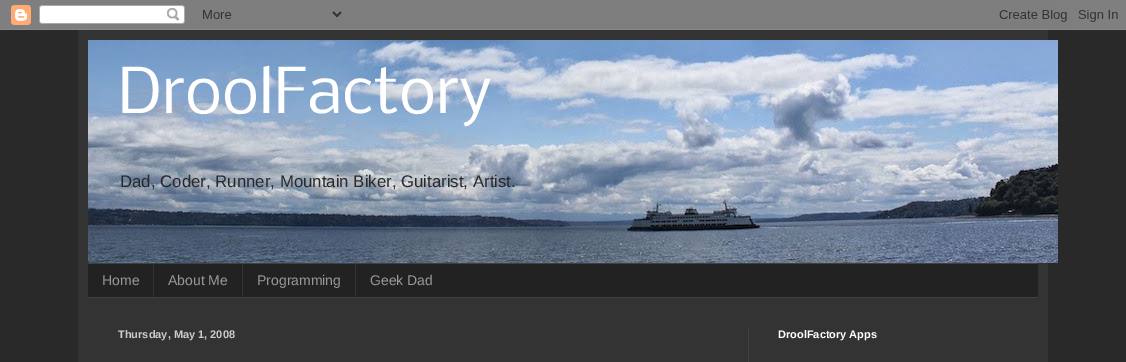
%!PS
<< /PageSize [1126 362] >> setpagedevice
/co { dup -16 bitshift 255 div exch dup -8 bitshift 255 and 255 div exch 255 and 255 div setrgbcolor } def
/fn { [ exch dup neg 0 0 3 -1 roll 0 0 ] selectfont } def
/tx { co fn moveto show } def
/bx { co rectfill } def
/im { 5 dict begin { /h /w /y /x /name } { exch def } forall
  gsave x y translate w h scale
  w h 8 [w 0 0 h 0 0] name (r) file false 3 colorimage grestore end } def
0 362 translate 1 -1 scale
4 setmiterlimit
0 0 1126 362 16#292929 bx
(media/1.raw) 0 0 1126 30 im
78 30 970 332 16#333333 bx
(media/2.raw) 88 40 970 223 im
88 264 950 33 16#222222 bx
88 263 950 1 16#404040 bx
88 297 950 1 16#404040 bx
153 264 1 33 16#333333 bx
242 264 1 33 16#333333 bx
355 264 1 33 16#333333 bx
748 328 1 34 16#404040 bx
(DroolFactory) 118 113 /Nobile-Regular 60 16#FFFFFF tx
(Dad, Coder, Runner, Mountain Biker, Guitarist, Artist.) 120 187 /LiberationSans-Regular 16.8 16#292929 tx
(Home) 102 285 /LiberationSans-Regular 14 16#999999 tx
(About Me) 168 285 /LiberationSans-Regular 14 16#999999 tx
(Programming) 257 285 /LiberationSans-Regular 14 16#999999 tx
(Geek Dad) 370 285 /LiberationSans-Regular 14 16#999999 tx
(Thursday, May 1, 2008) 118 338 /LiberationSans-Bold 11 16#CCCCCC tx
(DroolFactory Apps) 778 338 /LiberationSans-Bold 11 16#FFFFFF tx
showpage
